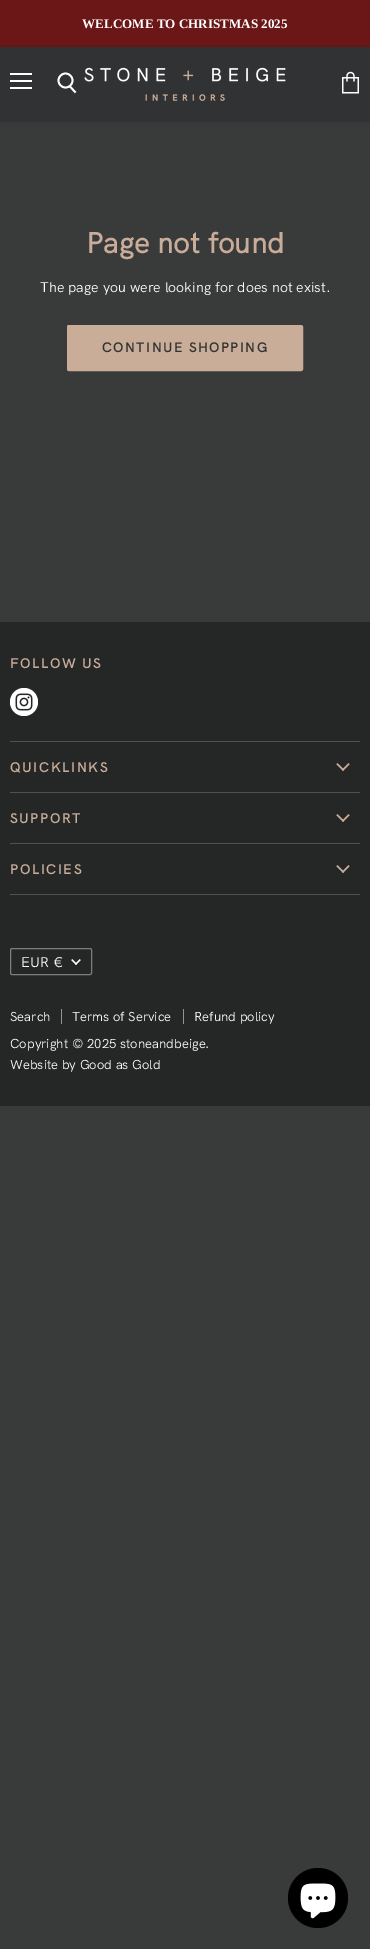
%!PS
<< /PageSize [370 1949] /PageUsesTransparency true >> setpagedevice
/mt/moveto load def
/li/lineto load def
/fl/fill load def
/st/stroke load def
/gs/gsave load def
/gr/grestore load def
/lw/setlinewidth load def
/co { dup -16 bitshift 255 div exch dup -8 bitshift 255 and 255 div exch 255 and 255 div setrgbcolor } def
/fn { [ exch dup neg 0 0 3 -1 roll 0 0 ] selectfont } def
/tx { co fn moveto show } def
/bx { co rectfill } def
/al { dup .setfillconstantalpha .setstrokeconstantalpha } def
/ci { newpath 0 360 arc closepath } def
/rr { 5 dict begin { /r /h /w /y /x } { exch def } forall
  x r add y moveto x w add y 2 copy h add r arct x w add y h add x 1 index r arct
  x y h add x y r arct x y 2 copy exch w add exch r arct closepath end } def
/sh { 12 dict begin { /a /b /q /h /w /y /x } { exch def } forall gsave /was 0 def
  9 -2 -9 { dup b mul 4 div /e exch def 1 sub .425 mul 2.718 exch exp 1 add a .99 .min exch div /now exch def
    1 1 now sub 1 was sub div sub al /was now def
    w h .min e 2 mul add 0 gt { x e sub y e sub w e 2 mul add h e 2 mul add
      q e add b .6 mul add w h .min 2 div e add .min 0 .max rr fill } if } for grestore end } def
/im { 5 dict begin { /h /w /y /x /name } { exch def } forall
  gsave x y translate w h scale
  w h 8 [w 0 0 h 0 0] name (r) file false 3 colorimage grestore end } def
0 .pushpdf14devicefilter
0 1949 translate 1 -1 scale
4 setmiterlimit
0 0 370 1949 16#393A3A bx
0 0 370 47 16#6B1717 bx
16#000000 co
0 48 370 73 0 2 .25 sh
0 47 370 73 16#313233 bx
(media/1.raw) 84 67 202 34 im
10 73 22 2 16#FFFFFF bx
10 80 22 2 16#FFFFFF bx
10 87 22 2 16#FFFFFF bx
1.8 lw
75.5 92.5 mt 69.5 86 li st
65.5 80.5 7 ci st
(media/2.raw) 342 71 17 23 im
16#C9AD99 co
67.5 325.5 235 45 1.5 rr gs fl gr
1 lw
st
0 622 370 484 16#252626 bx
10 741 350 1 16#515151 bx
16#FFFFFF co
24 702 14 ci fl
(media/3.raw) 15 693 18 18 im
10 792 350 1 16#515151 bx
(media/4.raw) 336 763 14 8 im
10 843 350 1 16#515151 bx
(media/4.raw) 336 814 14 8 im
10 894 350 1 16#515151 bx
(media/4.raw) 336 865 14 8 im
16#7C7D7D co
10.5 948.5 81 26 1.5 rr st
(media/5.raw) 71 959 10 6 im
61 1009 1 15 16#929393 bx
183 1009 1 15 16#929393 bx
16#000000 co
318 1898 30 ci fl
(media/6.raw) 300 1883 36 36 im
(WELCOME TO CHRISTMAS 2025) 82 28 /LiberationSerif-Bold 13.1 16#FFFFFF tx
(Page not found) 86 253 /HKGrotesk-Bold 29 16#C9AD9A tx
(The page you were looking for does not exist.) 40 292 /HKGrotesk-Regular 14.1 16#FFFFFF tx
/HKGrotesk-SemiBold 13.8 fn
16#313233 co
102 352 mt 1.4 0 (CONTINUE SHOPPING) ashow
/HKGrotesk-SemiBold 14 fn
16#C9AD9A co
10 668 mt 1.5 0 (FOLLOW US) ashow
10 772 mt 1.5 0 (QUICKLINKS) ashow
10 823 mt 1.5 0 (SUPPORT) ashow
10 874 mt 1.5 0 (POLICIES) ashow
(EUR €) 21 967 /HKGrotesk-Regular 14.1 16#FFFFFF tx
(Search) 10 1021 /HKGrotesk-Regular 13 16#FFFFFF tx
(Terms of Service) 72 1021 /HKGrotesk-Regular 13 16#FFFFFF tx
(Refund policy) 194 1021 /HKGrotesk-Regular 13 16#FFFFFF tx
(Copyright © 2025 stoneandbeige.) 10 1048 /HKGrotesk-Regular 13 16#FFFFFF tx
(Website by Good as Gold) 10 1069 /HKGrotesk-Regular 13 16#FFFFFF tx
.poppdf14devicefilter showpage
